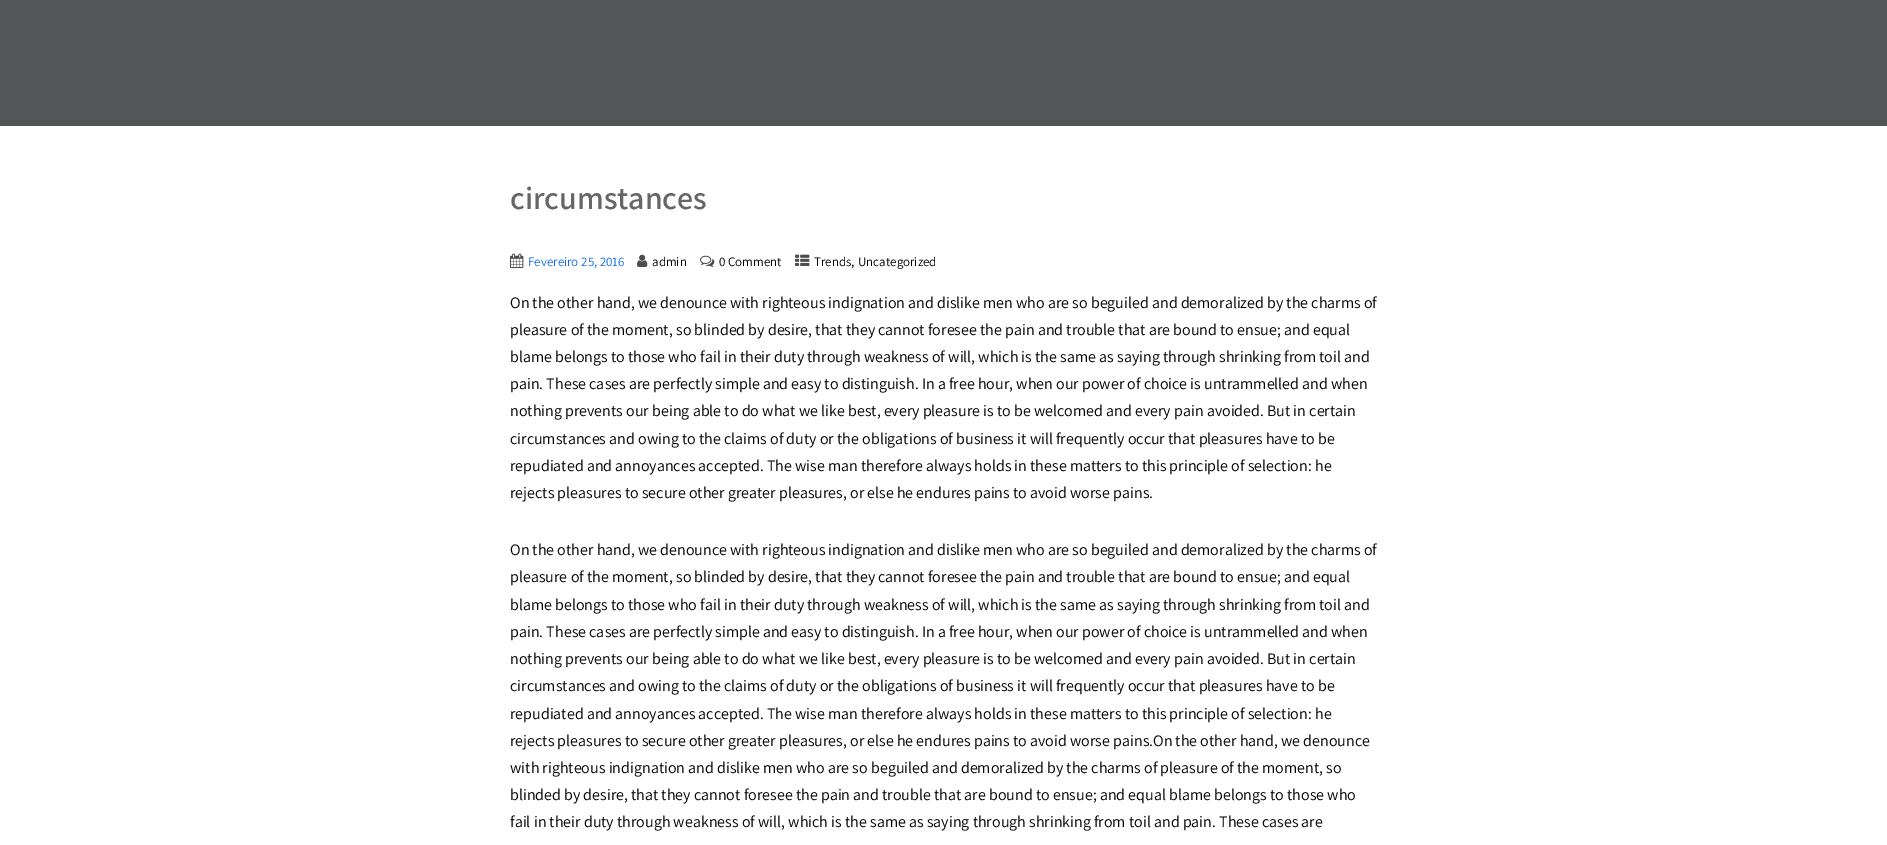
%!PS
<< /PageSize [1887 845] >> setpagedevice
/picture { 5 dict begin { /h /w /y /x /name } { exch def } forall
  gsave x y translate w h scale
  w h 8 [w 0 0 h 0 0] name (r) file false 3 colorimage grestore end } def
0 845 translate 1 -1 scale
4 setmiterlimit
1 setgray
0 0 1887 845 rectfill
0.329 0.333 0.337 setrgbcolor
0 0 1887 126 rectfill
/Assistant-SemiBold [32 0 0 -32 0 0] selectfont
0.4 setgray
510 209 moveto (circumstances) show
(img1.rgb) 510 253 14 16 picture
/Assistant-Regular [13 0 0 -13 0 0] selectfont
0.067 0.42 0.91 setrgbcolor
528 266 moveto (Fevereiro 25, 2016) show
(img2.rgb) 637 254 11 13 picture
0 setgray
652 266 moveto (admin) show
(img3.rgb) 700 255 15 12 picture
719 266 moveto (0 Comment) show
(img4.rgb) 795 254 15 12 picture
814 266 moveto (Trends) show
/Assistant-Regular [14 0 0 -14 0 0] selectfont
851 266 moveto (,) show
/Assistant-Regular [13 0 0 -13 0 0] selectfont
858 266 moveto (Uncategorized) show
/Assistant-Regular [16 0 0 -16 0 0] selectfont
510 308 moveto (On the other hand, we denounce with righteous indignation and dislike men who are so beguiled and demoralized by the charms of) show
510 335 moveto (pleasure of the moment, so blinded by desire, that they cannot foresee the pain and trouble that are bound to ensue; and equal) show
510 362 moveto (blame belongs to those who fail in their duty through weakness of will, which is the same as saying through shrinking from toil and) show
510 389 moveto (pain. These cases are perfectly simple and easy to distinguish. In a free hour, when our power of choice is untrammelled and when) show
510 416 moveto (nothing prevents our being able to do what we like best, every pleasure is to be welcomed and every pain avoided. But in certain) show
510 444 moveto (circumstances and owing to the claims of duty or the obligations of business it will frequently occur that pleasures have to be) show
510 471 moveto (repudiated and annoyances accepted. The wise man therefore always holds in these matters to this principle of selection: he) show
510 498 moveto (rejects pleasures to secure other greater pleasures, or else he endures pains to avoid worse pains.) show
510 555 moveto (On the other hand, we denounce with righteous indignation and dislike men who are so beguiled and demoralized by the charms of) show
510 582 moveto (pleasure of the moment, so blinded by desire, that they cannot foresee the pain and trouble that are bound to ensue; and equal) show
510 610 moveto (blame belongs to those who fail in their duty through weakness of will, which is the same as saying through shrinking from toil and) show
510 637 moveto (pain. These cases are perfectly simple and easy to distinguish. In a free hour, when our power of choice is untrammelled and when) show
510 664 moveto (nothing prevents our being able to do what we like best, every pleasure is to be welcomed and every pain avoided. But in certain) show
510 691 moveto (circumstances and owing to the claims of duty or the obligations of business it will frequently occur that pleasures have to be) show
510 719 moveto (repudiated and annoyances accepted. The wise man therefore always holds in these matters to this principle of selection: he) show
510 746 moveto (rejects pleasures to secure other greater pleasures, or else he endures pains to avoid worse pains.On the other hand, we denounce) show
510 773 moveto (with righteous indignation and dislike men who are so beguiled and demoralized by the charms of pleasure of the moment, so) show
510 800 moveto (blinded by desire, that they cannot foresee the pain and trouble that are bound to ensue; and equal blame belongs to those who) show
510 827 moveto (fail in their duty through weakness of will, which is the same as saying through shrinking from toil and pain. These cases are) show
showpage
